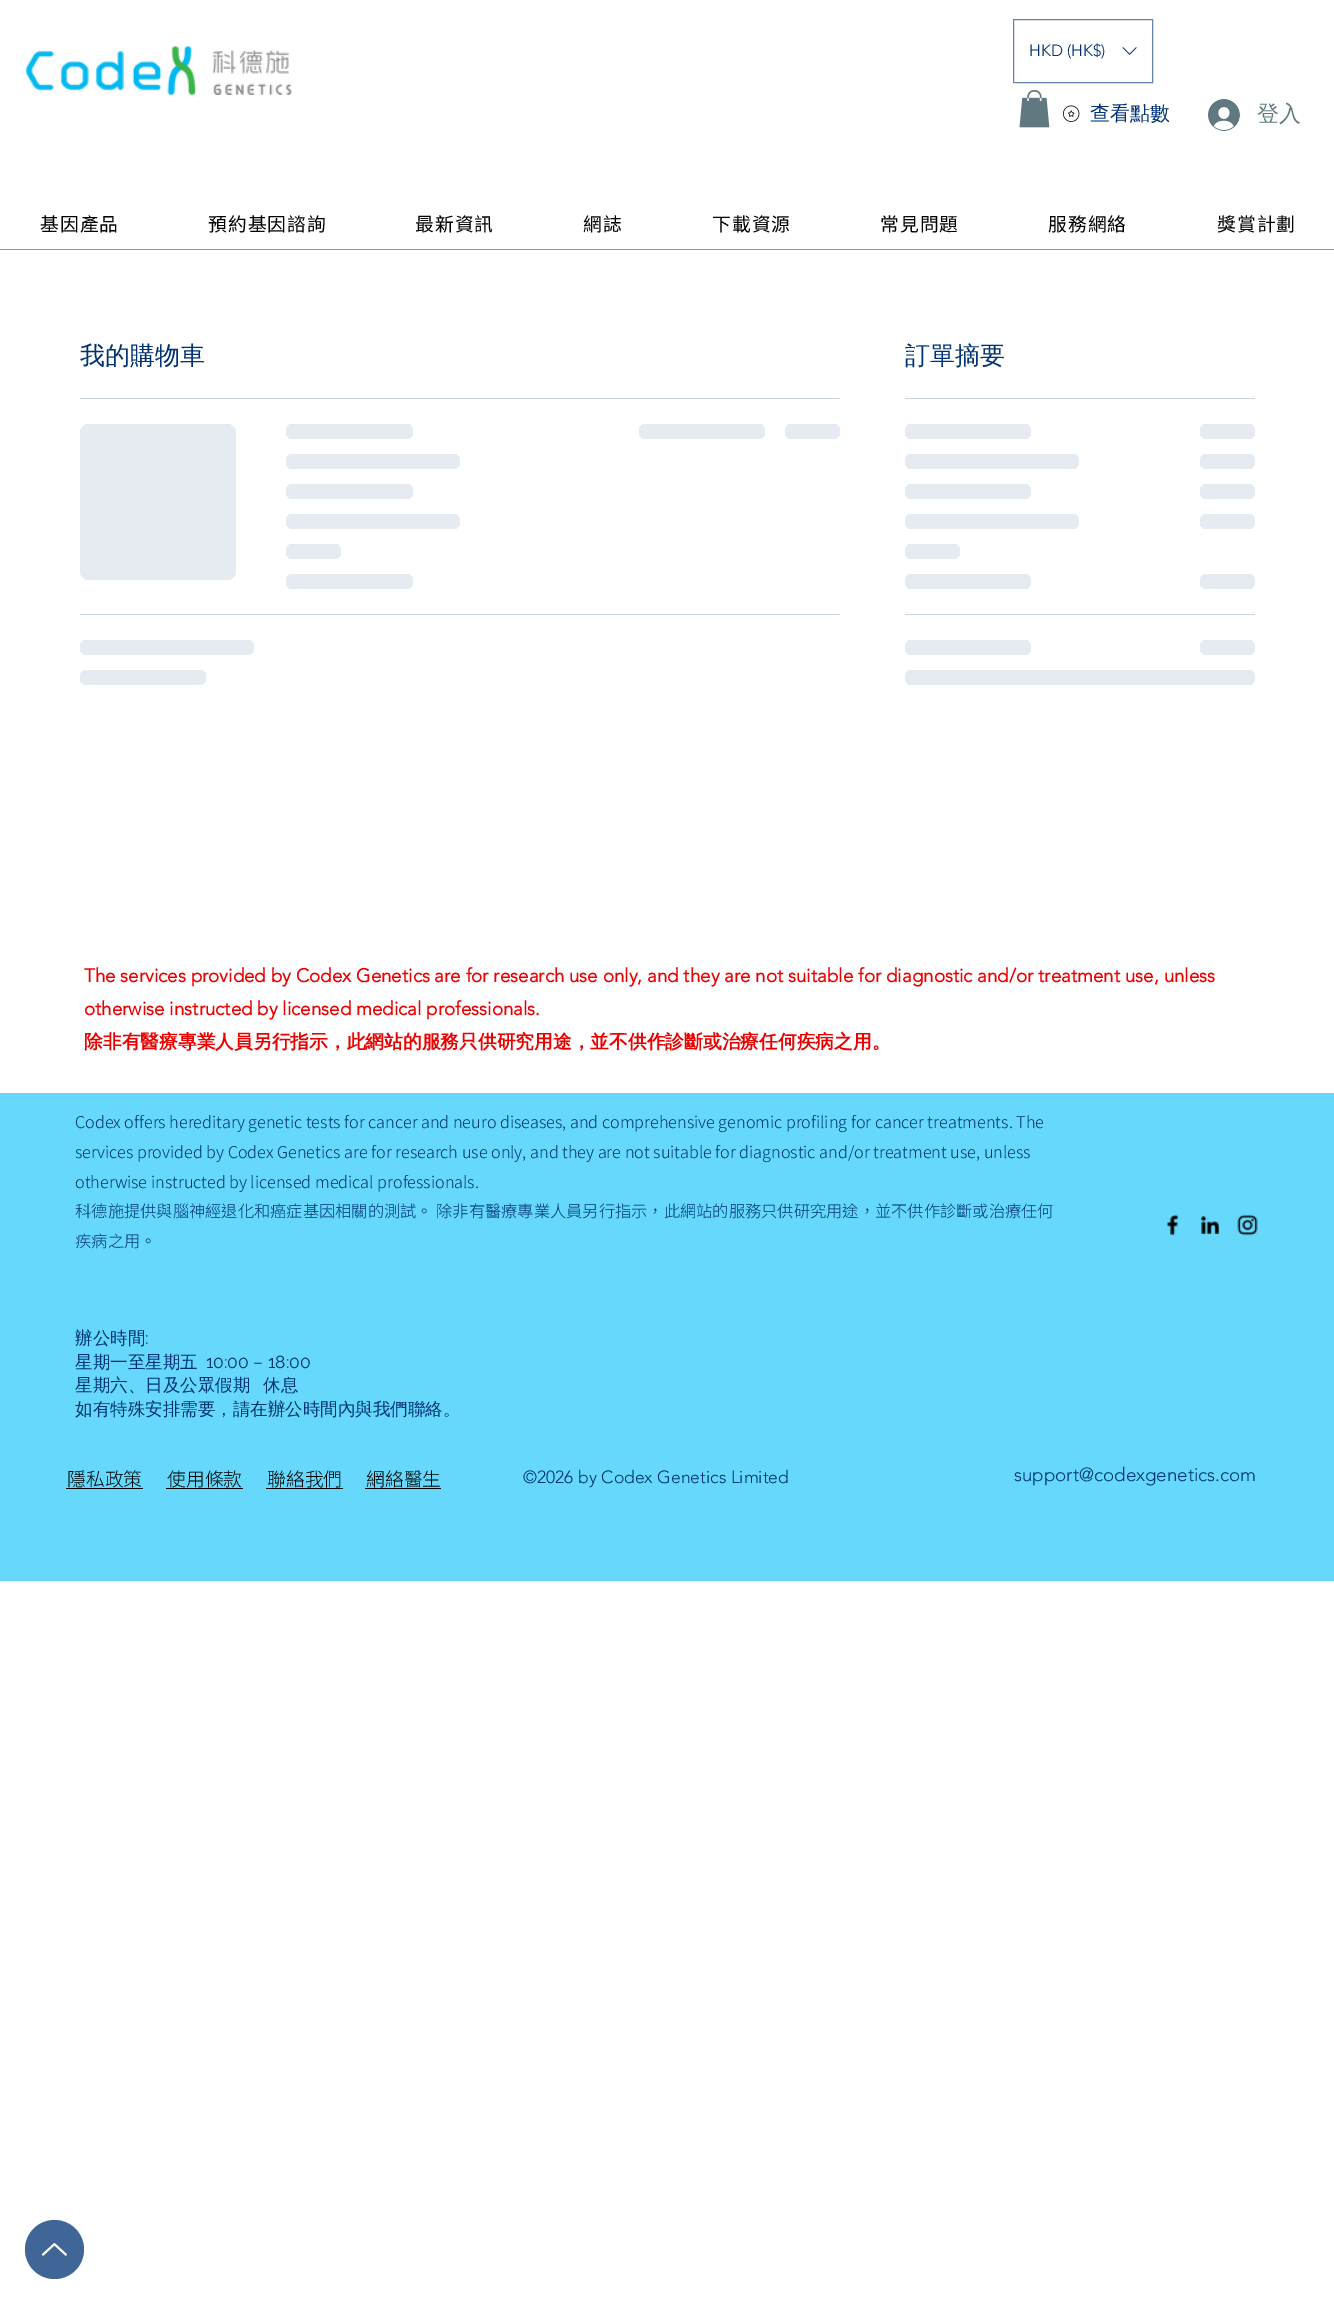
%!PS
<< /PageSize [1334 2321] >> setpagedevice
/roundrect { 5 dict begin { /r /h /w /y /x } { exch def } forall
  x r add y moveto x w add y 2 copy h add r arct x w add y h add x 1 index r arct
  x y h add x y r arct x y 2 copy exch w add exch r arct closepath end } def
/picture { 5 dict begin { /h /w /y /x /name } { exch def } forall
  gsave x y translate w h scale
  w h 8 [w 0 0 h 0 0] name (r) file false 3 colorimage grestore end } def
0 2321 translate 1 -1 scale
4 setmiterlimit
1 setgray
0 0 1334 2321 rectfill
(img1.rgb) 26 46 266 49 picture
0.4 0.514 0.675 setrgbcolor
1013.5 19.5 139 63 rectstroke
/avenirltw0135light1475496-Light [16.25 0 0 -16.25 0 0] selectfont
0 0.192 0.455 setrgbcolor
1029 56 moveto (HKD \(HK$\)) show
(img2.rgb) 1122 47 15 8 picture
(img3.rgb) 1019 90 31 38 picture
(img4.rgb) 1063 105 17 17 picture
/WenQuanYiZenHei-Medium [20 0 0 -20 0 0] selectfont
1090 120 moveto (查看點數) show
(img5.rgb) 1208 99 32 32 picture
/WenQuanYiZenHei-Medium [22 0 0 -22 0 0] selectfont
0.376 0.475 0.502 setrgbcolor
1257 121 moveto (登入) show
/NotoSansHK-Regular [18.75 0 0 -18.75 0 0] selectfont
0 setgray
40 231 moveto 1 0 (基因產品) ashow
208 231 moveto 1 0 (預約基因諮詢) ashow
415 231 moveto 1 0 (最新資訊) ashow
583 231 moveto 1 0 (網誌) ashow
712 231 moveto 1 0 (下載資源) ashow
880 231 moveto 1 0 (常見問題) ashow
1048 231 moveto 1 0 (服務網絡) ashow
1217 231 moveto 1 0 (獎賞計劃) ashow
0.502 0.596 0.729 setrgbcolor
0 249 1334 1 rectfill
0.8 0.839 0.89 setrgbcolor
80 398 760 1 rectfill
/WenQuanYiZenHei-Medium [25 0 0 -25 0 0] selectfont
0 0.192 0.455 setrgbcolor
80 364 moveto (我的購物車) show
gsave 80 424 156 156 10 roundrect clip newpath
<< /ShadingType 2 /ColorSpace /DeviceRGB /Coords [80 502 705 502] /Extend [true true] /Function << /FunctionType 3 /Domain [0 1] /Functions [<< /FunctionType 2 /Domain [0 1] /C0 [0.902 0.918 0.945] /C1 [0.902 0.918 0.945] /N 1 >> << /FunctionType 2 /Domain [0 1] /C0 [0.902 0.918 0.945] /C1 [0.8 0.839 0.89] /N 1 >> << /FunctionType 2 /Domain [0 1] /C0 [0.8 0.839 0.89] /C1 [0.902 0.918 0.945] /N 1 >> << /FunctionType 2 /Domain [0 1] /C0 [0.902 0.918 0.945] /C1 [0.902 0.918 0.945] /N 1 >>] /Bounds [0.25 0.37 0.63] /Encode [0 1 0 1 0 1 0 1] >> >> shfill grestore
gsave 286 424 127 15 7.5 roundrect clip newpath
<< /ShadingType 2 /ColorSpace /DeviceRGB /Coords [286 431 791 431] /Extend [true true] /Function << /FunctionType 3 /Domain [0 1] /Functions [<< /FunctionType 2 /Domain [0 1] /C0 [0.902 0.918 0.945] /C1 [0.902 0.918 0.945] /N 1 >> << /FunctionType 2 /Domain [0 1] /C0 [0.902 0.918 0.945] /C1 [0.8 0.839 0.89] /N 1 >> << /FunctionType 2 /Domain [0 1] /C0 [0.8 0.839 0.89] /C1 [0.902 0.918 0.945] /N 1 >> << /FunctionType 2 /Domain [0 1] /C0 [0.902 0.918 0.945] /C1 [0.902 0.918 0.945] /N 1 >>] /Bounds [0.25 0.37 0.63] /Encode [0 1 0 1 0 1 0 1] >> >> shfill grestore
gsave 286 454 174 15 7.5 roundrect clip newpath
<< /ShadingType 2 /ColorSpace /DeviceRGB /Coords [286 461 981 461] /Extend [true true] /Function << /FunctionType 3 /Domain [0 1] /Functions [<< /FunctionType 2 /Domain [0 1] /C0 [0.902 0.918 0.945] /C1 [0.902 0.918 0.945] /N 1 >> << /FunctionType 2 /Domain [0 1] /C0 [0.902 0.918 0.945] /C1 [0.8 0.839 0.89] /N 1 >> << /FunctionType 2 /Domain [0 1] /C0 [0.8 0.839 0.89] /C1 [0.902 0.918 0.945] /N 1 >> << /FunctionType 2 /Domain [0 1] /C0 [0.902 0.918 0.945] /C1 [0.902 0.918 0.945] /N 1 >>] /Bounds [0.25 0.37 0.63] /Encode [0 1 0 1 0 1 0 1] >> >> shfill grestore
gsave 286 484 127 15 7.5 roundrect clip newpath
<< /ShadingType 2 /ColorSpace /DeviceRGB /Coords [286 491 791 491] /Extend [true true] /Function << /FunctionType 3 /Domain [0 1] /Functions [<< /FunctionType 2 /Domain [0 1] /C0 [0.902 0.918 0.945] /C1 [0.902 0.918 0.945] /N 1 >> << /FunctionType 2 /Domain [0 1] /C0 [0.902 0.918 0.945] /C1 [0.8 0.839 0.89] /N 1 >> << /FunctionType 2 /Domain [0 1] /C0 [0.8 0.839 0.89] /C1 [0.902 0.918 0.945] /N 1 >> << /FunctionType 2 /Domain [0 1] /C0 [0.902 0.918 0.945] /C1 [0.902 0.918 0.945] /N 1 >>] /Bounds [0.25 0.37 0.63] /Encode [0 1 0 1 0 1 0 1] >> >> shfill grestore
gsave 286 514 174 15 7.5 roundrect clip newpath
<< /ShadingType 2 /ColorSpace /DeviceRGB /Coords [286 521 981 521] /Extend [true true] /Function << /FunctionType 3 /Domain [0 1] /Functions [<< /FunctionType 2 /Domain [0 1] /C0 [0.902 0.918 0.945] /C1 [0.902 0.918 0.945] /N 1 >> << /FunctionType 2 /Domain [0 1] /C0 [0.902 0.918 0.945] /C1 [0.8 0.839 0.89] /N 1 >> << /FunctionType 2 /Domain [0 1] /C0 [0.8 0.839 0.89] /C1 [0.902 0.918 0.945] /N 1 >> << /FunctionType 2 /Domain [0 1] /C0 [0.902 0.918 0.945] /C1 [0.902 0.918 0.945] /N 1 >>] /Bounds [0.25 0.37 0.63] /Encode [0 1 0 1 0 1 0 1] >> >> shfill grestore
gsave 286 544 55 15 7.5 roundrect clip newpath
<< /ShadingType 2 /ColorSpace /DeviceRGB /Coords [286 551 506 551] /Extend [true true] /Function << /FunctionType 3 /Domain [0 1] /Functions [<< /FunctionType 2 /Domain [0 1] /C0 [0.902 0.918 0.945] /C1 [0.902 0.918 0.945] /N 1 >> << /FunctionType 2 /Domain [0 1] /C0 [0.902 0.918 0.945] /C1 [0.8 0.839 0.89] /N 1 >> << /FunctionType 2 /Domain [0 1] /C0 [0.8 0.839 0.89] /C1 [0.902 0.918 0.945] /N 1 >> << /FunctionType 2 /Domain [0 1] /C0 [0.902 0.918 0.945] /C1 [0.902 0.918 0.945] /N 1 >>] /Bounds [0.25 0.37 0.63] /Encode [0 1 0 1 0 1 0 1] >> >> shfill grestore
gsave 286 574 127 15 7.5 roundrect clip newpath
<< /ShadingType 2 /ColorSpace /DeviceRGB /Coords [286 581 791 581] /Extend [true true] /Function << /FunctionType 3 /Domain [0 1] /Functions [<< /FunctionType 2 /Domain [0 1] /C0 [0.902 0.918 0.945] /C1 [0.902 0.918 0.945] /N 1 >> << /FunctionType 2 /Domain [0 1] /C0 [0.902 0.918 0.945] /C1 [0.8 0.839 0.89] /N 1 >> << /FunctionType 2 /Domain [0 1] /C0 [0.8 0.839 0.89] /C1 [0.902 0.918 0.945] /N 1 >> << /FunctionType 2 /Domain [0 1] /C0 [0.902 0.918 0.945] /C1 [0.902 0.918 0.945] /N 1 >>] /Bounds [0.25 0.37 0.63] /Encode [0 1 0 1 0 1 0 1] >> >> shfill grestore
gsave 639 424 126 15 7.5 roundrect clip newpath
<< /ShadingType 2 /ColorSpace /DeviceRGB /Coords [639 431 1144 431] /Extend [true true] /Function << /FunctionType 3 /Domain [0 1] /Functions [<< /FunctionType 2 /Domain [0 1] /C0 [0.902 0.918 0.945] /C1 [0.902 0.918 0.945] /N 1 >> << /FunctionType 2 /Domain [0 1] /C0 [0.902 0.918 0.945] /C1 [0.8 0.839 0.89] /N 1 >> << /FunctionType 2 /Domain [0 1] /C0 [0.8 0.839 0.89] /C1 [0.902 0.918 0.945] /N 1 >> << /FunctionType 2 /Domain [0 1] /C0 [0.902 0.918 0.945] /C1 [0.902 0.918 0.945] /N 1 >>] /Bounds [0.25 0.37 0.63] /Encode [0 1 0 1 0 1 0 1] >> >> shfill grestore
gsave 785 424 55 15 7.5 roundrect clip newpath
<< /ShadingType 2 /ColorSpace /DeviceRGB /Coords [785 431 1005 431] /Extend [true true] /Function << /FunctionType 3 /Domain [0 1] /Functions [<< /FunctionType 2 /Domain [0 1] /C0 [0.902 0.918 0.945] /C1 [0.902 0.918 0.945] /N 1 >> << /FunctionType 2 /Domain [0 1] /C0 [0.902 0.918 0.945] /C1 [0.8 0.839 0.89] /N 1 >> << /FunctionType 2 /Domain [0 1] /C0 [0.8 0.839 0.89] /C1 [0.902 0.918 0.945] /N 1 >> << /FunctionType 2 /Domain [0 1] /C0 [0.902 0.918 0.945] /C1 [0.902 0.918 0.945] /N 1 >>] /Bounds [0.25 0.37 0.63] /Encode [0 1 0 1 0 1 0 1] >> >> shfill grestore
0.8 0.839 0.89 setrgbcolor
80 614 760 1 rectfill
gsave 80 640 174 15 7.5 roundrect clip newpath
<< /ShadingType 2 /ColorSpace /DeviceRGB /Coords [80 648 775 648] /Extend [true true] /Function << /FunctionType 3 /Domain [0 1] /Functions [<< /FunctionType 2 /Domain [0 1] /C0 [0.902 0.918 0.945] /C1 [0.902 0.918 0.945] /N 1 >> << /FunctionType 2 /Domain [0 1] /C0 [0.902 0.918 0.945] /C1 [0.8 0.839 0.89] /N 1 >> << /FunctionType 2 /Domain [0 1] /C0 [0.8 0.839 0.89] /C1 [0.902 0.918 0.945] /N 1 >> << /FunctionType 2 /Domain [0 1] /C0 [0.902 0.918 0.945] /C1 [0.902 0.918 0.945] /N 1 >>] /Bounds [0.25 0.37 0.63] /Encode [0 1 0 1 0 1 0 1] >> >> shfill grestore
gsave 80 670 126 15 7.5 roundrect clip newpath
<< /ShadingType 2 /ColorSpace /DeviceRGB /Coords [80 678 585 678] /Extend [true true] /Function << /FunctionType 3 /Domain [0 1] /Functions [<< /FunctionType 2 /Domain [0 1] /C0 [0.902 0.918 0.945] /C1 [0.902 0.918 0.945] /N 1 >> << /FunctionType 2 /Domain [0 1] /C0 [0.902 0.918 0.945] /C1 [0.8 0.839 0.89] /N 1 >> << /FunctionType 2 /Domain [0 1] /C0 [0.8 0.839 0.89] /C1 [0.902 0.918 0.945] /N 1 >> << /FunctionType 2 /Domain [0 1] /C0 [0.902 0.918 0.945] /C1 [0.902 0.918 0.945] /N 1 >>] /Bounds [0.25 0.37 0.63] /Encode [0 1 0 1 0 1 0 1] >> >> shfill grestore
905 398 350 1 rectfill
0 0.192 0.455 setrgbcolor
905 364 moveto (訂單摘要) show
gsave 905 424 126 15 7.5 roundrect clip newpath
<< /ShadingType 2 /ColorSpace /DeviceRGB /Coords [905 431 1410 431] /Extend [true true] /Function << /FunctionType 3 /Domain [0 1] /Functions [<< /FunctionType 2 /Domain [0 1] /C0 [0.902 0.918 0.945] /C1 [0.902 0.918 0.945] /N 1 >> << /FunctionType 2 /Domain [0 1] /C0 [0.902 0.918 0.945] /C1 [0.8 0.839 0.89] /N 1 >> << /FunctionType 2 /Domain [0 1] /C0 [0.8 0.839 0.89] /C1 [0.902 0.918 0.945] /N 1 >> << /FunctionType 2 /Domain [0 1] /C0 [0.902 0.918 0.945] /C1 [0.902 0.918 0.945] /N 1 >>] /Bounds [0.25 0.37 0.63] /Encode [0 1 0 1 0 1 0 1] >> >> shfill grestore
gsave 1200 424 55 15 7.5 roundrect clip newpath
<< /ShadingType 2 /ColorSpace /DeviceRGB /Coords [1200 431 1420 431] /Extend [true true] /Function << /FunctionType 3 /Domain [0 1] /Functions [<< /FunctionType 2 /Domain [0 1] /C0 [0.902 0.918 0.945] /C1 [0.902 0.918 0.945] /N 1 >> << /FunctionType 2 /Domain [0 1] /C0 [0.902 0.918 0.945] /C1 [0.8 0.839 0.89] /N 1 >> << /FunctionType 2 /Domain [0 1] /C0 [0.8 0.839 0.89] /C1 [0.902 0.918 0.945] /N 1 >> << /FunctionType 2 /Domain [0 1] /C0 [0.902 0.918 0.945] /C1 [0.902 0.918 0.945] /N 1 >>] /Bounds [0.25 0.37 0.63] /Encode [0 1 0 1 0 1 0 1] >> >> shfill grestore
gsave 905 454 174 15 7.5 roundrect clip newpath
<< /ShadingType 2 /ColorSpace /DeviceRGB /Coords [905 461 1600 461] /Extend [true true] /Function << /FunctionType 3 /Domain [0 1] /Functions [<< /FunctionType 2 /Domain [0 1] /C0 [0.902 0.918 0.945] /C1 [0.902 0.918 0.945] /N 1 >> << /FunctionType 2 /Domain [0 1] /C0 [0.902 0.918 0.945] /C1 [0.8 0.839 0.89] /N 1 >> << /FunctionType 2 /Domain [0 1] /C0 [0.8 0.839 0.89] /C1 [0.902 0.918 0.945] /N 1 >> << /FunctionType 2 /Domain [0 1] /C0 [0.902 0.918 0.945] /C1 [0.902 0.918 0.945] /N 1 >>] /Bounds [0.25 0.37 0.63] /Encode [0 1 0 1 0 1 0 1] >> >> shfill grestore
gsave 1200 454 55 15 7.5 roundrect clip newpath
<< /ShadingType 2 /ColorSpace /DeviceRGB /Coords [1200 461 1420 461] /Extend [true true] /Function << /FunctionType 3 /Domain [0 1] /Functions [<< /FunctionType 2 /Domain [0 1] /C0 [0.902 0.918 0.945] /C1 [0.902 0.918 0.945] /N 1 >> << /FunctionType 2 /Domain [0 1] /C0 [0.902 0.918 0.945] /C1 [0.8 0.839 0.89] /N 1 >> << /FunctionType 2 /Domain [0 1] /C0 [0.8 0.839 0.89] /C1 [0.902 0.918 0.945] /N 1 >> << /FunctionType 2 /Domain [0 1] /C0 [0.902 0.918 0.945] /C1 [0.902 0.918 0.945] /N 1 >>] /Bounds [0.25 0.37 0.63] /Encode [0 1 0 1 0 1 0 1] >> >> shfill grestore
gsave 905 484 126 15 7.5 roundrect clip newpath
<< /ShadingType 2 /ColorSpace /DeviceRGB /Coords [905 491 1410 491] /Extend [true true] /Function << /FunctionType 3 /Domain [0 1] /Functions [<< /FunctionType 2 /Domain [0 1] /C0 [0.902 0.918 0.945] /C1 [0.902 0.918 0.945] /N 1 >> << /FunctionType 2 /Domain [0 1] /C0 [0.902 0.918 0.945] /C1 [0.8 0.839 0.89] /N 1 >> << /FunctionType 2 /Domain [0 1] /C0 [0.8 0.839 0.89] /C1 [0.902 0.918 0.945] /N 1 >> << /FunctionType 2 /Domain [0 1] /C0 [0.902 0.918 0.945] /C1 [0.902 0.918 0.945] /N 1 >>] /Bounds [0.25 0.37 0.63] /Encode [0 1 0 1 0 1 0 1] >> >> shfill grestore
gsave 1200 484 55 15 7.5 roundrect clip newpath
<< /ShadingType 2 /ColorSpace /DeviceRGB /Coords [1200 491 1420 491] /Extend [true true] /Function << /FunctionType 3 /Domain [0 1] /Functions [<< /FunctionType 2 /Domain [0 1] /C0 [0.902 0.918 0.945] /C1 [0.902 0.918 0.945] /N 1 >> << /FunctionType 2 /Domain [0 1] /C0 [0.902 0.918 0.945] /C1 [0.8 0.839 0.89] /N 1 >> << /FunctionType 2 /Domain [0 1] /C0 [0.8 0.839 0.89] /C1 [0.902 0.918 0.945] /N 1 >> << /FunctionType 2 /Domain [0 1] /C0 [0.902 0.918 0.945] /C1 [0.902 0.918 0.945] /N 1 >>] /Bounds [0.25 0.37 0.63] /Encode [0 1 0 1 0 1 0 1] >> >> shfill grestore
gsave 905 514 174 15 7.5 roundrect clip newpath
<< /ShadingType 2 /ColorSpace /DeviceRGB /Coords [905 521 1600 521] /Extend [true true] /Function << /FunctionType 3 /Domain [0 1] /Functions [<< /FunctionType 2 /Domain [0 1] /C0 [0.902 0.918 0.945] /C1 [0.902 0.918 0.945] /N 1 >> << /FunctionType 2 /Domain [0 1] /C0 [0.902 0.918 0.945] /C1 [0.8 0.839 0.89] /N 1 >> << /FunctionType 2 /Domain [0 1] /C0 [0.8 0.839 0.89] /C1 [0.902 0.918 0.945] /N 1 >> << /FunctionType 2 /Domain [0 1] /C0 [0.902 0.918 0.945] /C1 [0.902 0.918 0.945] /N 1 >>] /Bounds [0.25 0.37 0.63] /Encode [0 1 0 1 0 1 0 1] >> >> shfill grestore
gsave 1200 514 55 15 7.5 roundrect clip newpath
<< /ShadingType 2 /ColorSpace /DeviceRGB /Coords [1200 521 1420 521] /Extend [true true] /Function << /FunctionType 3 /Domain [0 1] /Functions [<< /FunctionType 2 /Domain [0 1] /C0 [0.902 0.918 0.945] /C1 [0.902 0.918 0.945] /N 1 >> << /FunctionType 2 /Domain [0 1] /C0 [0.902 0.918 0.945] /C1 [0.8 0.839 0.89] /N 1 >> << /FunctionType 2 /Domain [0 1] /C0 [0.8 0.839 0.89] /C1 [0.902 0.918 0.945] /N 1 >> << /FunctionType 2 /Domain [0 1] /C0 [0.902 0.918 0.945] /C1 [0.902 0.918 0.945] /N 1 >>] /Bounds [0.25 0.37 0.63] /Encode [0 1 0 1 0 1 0 1] >> >> shfill grestore
gsave 905 544 55 15 7.5 roundrect clip newpath
<< /ShadingType 2 /ColorSpace /DeviceRGB /Coords [905 551 1125 551] /Extend [true true] /Function << /FunctionType 3 /Domain [0 1] /Functions [<< /FunctionType 2 /Domain [0 1] /C0 [0.902 0.918 0.945] /C1 [0.902 0.918 0.945] /N 1 >> << /FunctionType 2 /Domain [0 1] /C0 [0.902 0.918 0.945] /C1 [0.8 0.839 0.89] /N 1 >> << /FunctionType 2 /Domain [0 1] /C0 [0.8 0.839 0.89] /C1 [0.902 0.918 0.945] /N 1 >> << /FunctionType 2 /Domain [0 1] /C0 [0.902 0.918 0.945] /C1 [0.902 0.918 0.945] /N 1 >>] /Bounds [0.25 0.37 0.63] /Encode [0 1 0 1 0 1 0 1] >> >> shfill grestore
gsave 905 574 126 15 7.5 roundrect clip newpath
<< /ShadingType 2 /ColorSpace /DeviceRGB /Coords [905 581 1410 581] /Extend [true true] /Function << /FunctionType 3 /Domain [0 1] /Functions [<< /FunctionType 2 /Domain [0 1] /C0 [0.902 0.918 0.945] /C1 [0.902 0.918 0.945] /N 1 >> << /FunctionType 2 /Domain [0 1] /C0 [0.902 0.918 0.945] /C1 [0.8 0.839 0.89] /N 1 >> << /FunctionType 2 /Domain [0 1] /C0 [0.8 0.839 0.89] /C1 [0.902 0.918 0.945] /N 1 >> << /FunctionType 2 /Domain [0 1] /C0 [0.902 0.918 0.945] /C1 [0.902 0.918 0.945] /N 1 >>] /Bounds [0.25 0.37 0.63] /Encode [0 1 0 1 0 1 0 1] >> >> shfill grestore
gsave 1200 574 55 15 7.5 roundrect clip newpath
<< /ShadingType 2 /ColorSpace /DeviceRGB /Coords [1200 581 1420 581] /Extend [true true] /Function << /FunctionType 3 /Domain [0 1] /Functions [<< /FunctionType 2 /Domain [0 1] /C0 [0.902 0.918 0.945] /C1 [0.902 0.918 0.945] /N 1 >> << /FunctionType 2 /Domain [0 1] /C0 [0.902 0.918 0.945] /C1 [0.8 0.839 0.89] /N 1 >> << /FunctionType 2 /Domain [0 1] /C0 [0.8 0.839 0.89] /C1 [0.902 0.918 0.945] /N 1 >> << /FunctionType 2 /Domain [0 1] /C0 [0.902 0.918 0.945] /C1 [0.902 0.918 0.945] /N 1 >>] /Bounds [0.25 0.37 0.63] /Encode [0 1 0 1 0 1 0 1] >> >> shfill grestore
0.8 0.839 0.89 setrgbcolor
905 614 350 1 rectfill
gsave 905 640 126 15 7.5 roundrect clip newpath
<< /ShadingType 2 /ColorSpace /DeviceRGB /Coords [905 648 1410 648] /Extend [true true] /Function << /FunctionType 3 /Domain [0 1] /Functions [<< /FunctionType 2 /Domain [0 1] /C0 [0.902 0.918 0.945] /C1 [0.902 0.918 0.945] /N 1 >> << /FunctionType 2 /Domain [0 1] /C0 [0.902 0.918 0.945] /C1 [0.8 0.839 0.89] /N 1 >> << /FunctionType 2 /Domain [0 1] /C0 [0.8 0.839 0.89] /C1 [0.902 0.918 0.945] /N 1 >> << /FunctionType 2 /Domain [0 1] /C0 [0.902 0.918 0.945] /C1 [0.902 0.918 0.945] /N 1 >>] /Bounds [0.25 0.37 0.63] /Encode [0 1 0 1 0 1 0 1] >> >> shfill grestore
gsave 1200 640 55 15 7.5 roundrect clip newpath
<< /ShadingType 2 /ColorSpace /DeviceRGB /Coords [1200 648 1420 648] /Extend [true true] /Function << /FunctionType 3 /Domain [0 1] /Functions [<< /FunctionType 2 /Domain [0 1] /C0 [0.902 0.918 0.945] /C1 [0.902 0.918 0.945] /N 1 >> << /FunctionType 2 /Domain [0 1] /C0 [0.902 0.918 0.945] /C1 [0.8 0.839 0.89] /N 1 >> << /FunctionType 2 /Domain [0 1] /C0 [0.8 0.839 0.89] /C1 [0.902 0.918 0.945] /N 1 >> << /FunctionType 2 /Domain [0 1] /C0 [0.902 0.918 0.945] /C1 [0.902 0.918 0.945] /N 1 >>] /Bounds [0.25 0.37 0.63] /Encode [0 1 0 1 0 1 0 1] >> >> shfill grestore
gsave 905 670 350 15 7.5 roundrect clip newpath
<< /ShadingType 2 /ColorSpace /DeviceRGB /Coords [905 678 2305 678] /Extend [true true] /Function << /FunctionType 3 /Domain [0 1] /Functions [<< /FunctionType 2 /Domain [0 1] /C0 [0.902 0.918 0.945] /C1 [0.902 0.918 0.945] /N 1 >> << /FunctionType 2 /Domain [0 1] /C0 [0.902 0.918 0.945] /C1 [0.8 0.839 0.89] /N 1 >> << /FunctionType 2 /Domain [0 1] /C0 [0.8 0.839 0.89] /C1 [0.902 0.918 0.945] /N 1 >> << /FunctionType 2 /Domain [0 1] /C0 [0.902 0.918 0.945] /C1 [0.902 0.918 0.945] /N 1 >>] /Bounds [0.25 0.37 0.63] /Encode [0 1 0 1 0 1 0 1] >> >> shfill grestore
/avenirltw0135light1475496-Bold [18.75 0 0 -18.75 0 0] selectfont
0.922 0 0 setrgbcolor
84 982 moveto (The services provided by Codex Genetics are for research use only, and they are not suitable for diagnostic and/or treatment use, unless) show
84 1015 moveto (otherwise instructed by licensed medical professionals.) show
/WenQuanYiZenHei-Bold [18.75 0 0 -18.75 0 0] selectfont
84 1048 moveto (除非有醫療專業人員另行指示，此網站的服務只供研究用途，並不供作診斷或治療任何疾病之用。) show
0.4 0.847 0.984 setrgbcolor
0 1093 1334 488 rectfill
/NotoSansHK-Light [16.25 0 0 -16.25 0 0] selectfont
0 0.192 0.455 setrgbcolor
75 1128 moveto (Codex offers hereditary genetic tests for cancer and neuro diseases, and comprehensive genomic profiling for cancer treatments. The) show
75 1158 moveto (services provided by Codex Genetics are for research use only, and they are not suitable for diagnostic and/or treatment use, unless) show
75 1188 moveto (otherwise instructed by licensed medical professionals.) show
75 1217 moveto (科德施提供與腦神經退化和癌症基因相關的測試。 除非有醫療專業人員另行指示，此網站的服務只供研究用途，並不供作診斷或治療任何) show
75 1247 moveto (疾病之用。) show
(img6.rgb) 1167 1214 12 22 picture
(img7.rgb) 1201 1216 19 19 picture
(img8.rgb) 1237 1214 21 22 picture
/WenQuanYiZenHei-Medium [17.5 0 0 -17.5 0 0] selectfont
75 1344 moveto (辦公時間) show
/Raleway-Regular [17.5 0 0 -17.5 0 0] selectfont
145 1344 moveto (:) show
/WenQuanYiZenHei-Medium [17.5 0 0 -17.5 0 0] selectfont
75 1368 moveto (星期一至星期五) show
/Raleway-Regular [17.5 0 0 -17.5 0 0] selectfont
206 1368 moveto (10:00 – 18:00) show
/WenQuanYiZenHei-Medium [17.5 0 0 -17.5 0 0] selectfont
75 1391 moveto (星期六、日及公眾假期) show
263 1391 moveto (休息) show
75 1415 moveto (如有特殊安排需要，請在辦公時間內與我們聯絡。) show
/NotoSansHK-Light [18.75 0 0 -18.75 0 0] selectfont
0 setgray
67 1486 moveto (隱私政策) show
66 1488 77 1 rectfill
167 1486 moveto (使用條款) show
166 1488 77 1 rectfill
267 1486 moveto (聯絡我們) show
266 1488 77 1 rectfill
366 1486 moveto (網絡醫生) show
365 1488 76 1 rectfill
/avenirltw0135light1475496-Light [17.5 0 0 -17.5 0 0] selectfont
0 0.192 0.455 setrgbcolor
523 1483 moveto (©2026 by Codex Genetics Limited) show
/avenirltw0135light1475496-Light [18.75 0 0 -18.75 0 0] selectfont
1014 1481 moveto (support@codexgenetics.com) show
0.251 0.396 0.592 setrgbcolor
newpath 54.5 2249.5 29.5 0 360 arc closepath fill
(img9.rgb) 41 2243 26 13 picture
showpage
